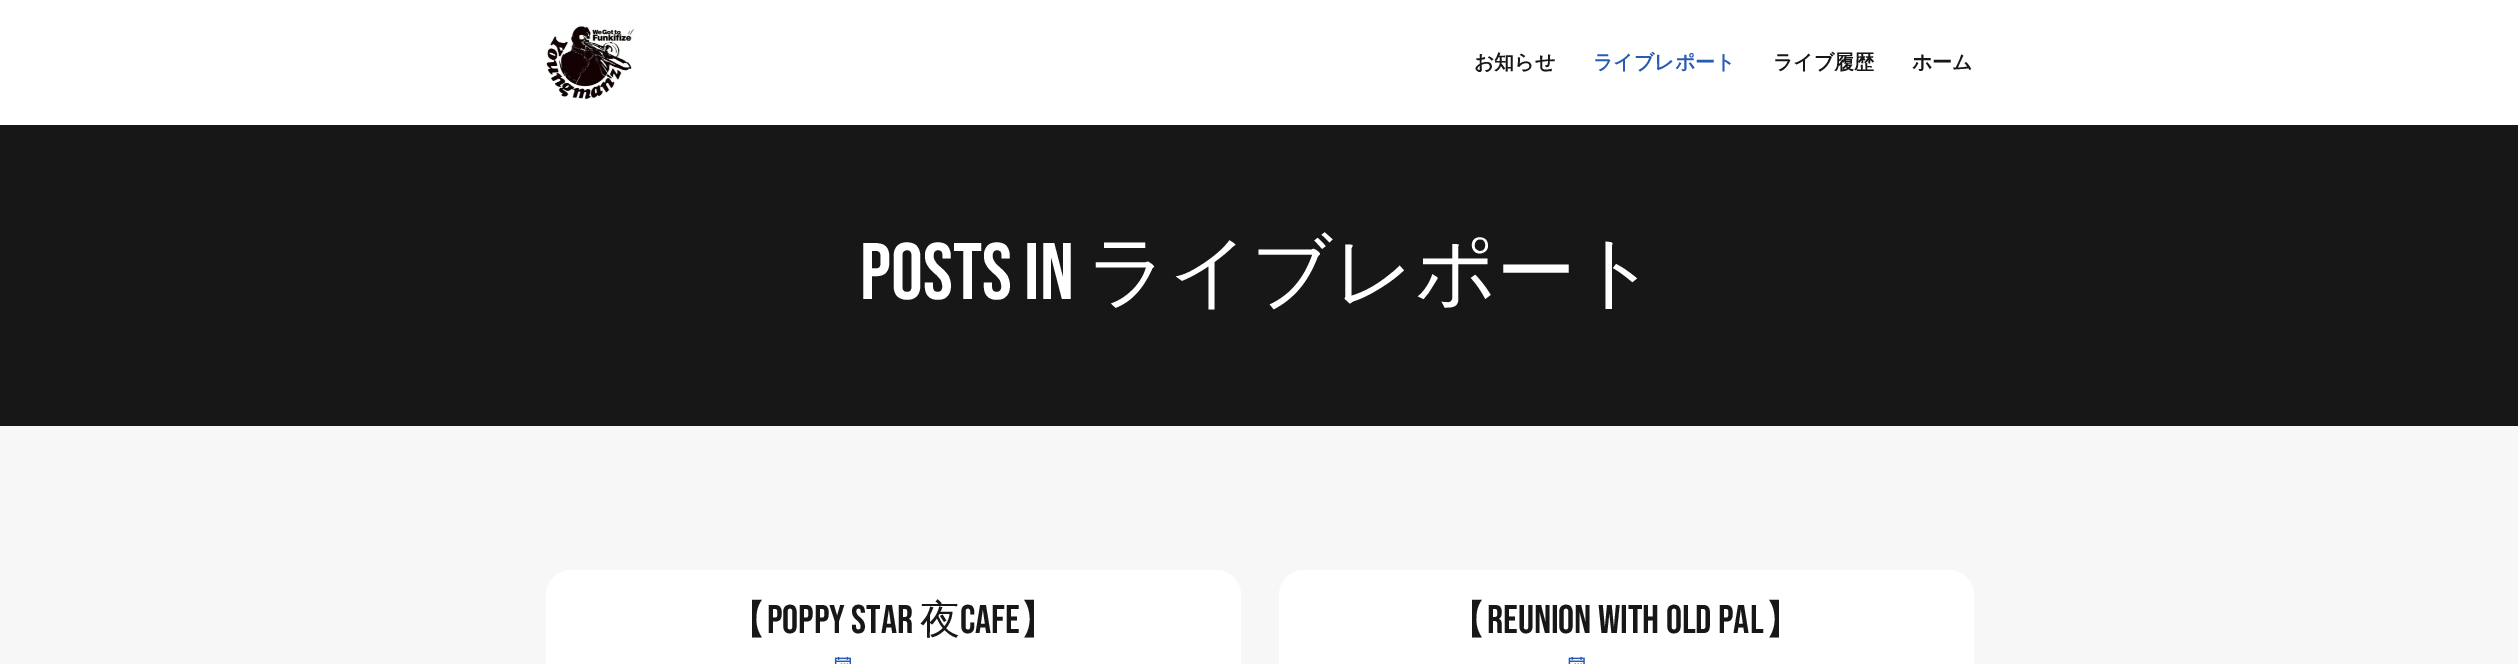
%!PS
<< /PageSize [2518 664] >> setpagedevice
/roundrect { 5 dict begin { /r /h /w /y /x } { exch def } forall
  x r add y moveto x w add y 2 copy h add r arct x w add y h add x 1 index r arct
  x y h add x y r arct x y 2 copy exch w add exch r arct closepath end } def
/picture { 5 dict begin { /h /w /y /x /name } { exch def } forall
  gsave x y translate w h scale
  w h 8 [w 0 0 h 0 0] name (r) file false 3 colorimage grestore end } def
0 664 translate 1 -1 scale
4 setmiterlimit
1 setgray
0 0 2518 664 rectfill
(img1.rgb) 546 25 88 75 picture
/WenQuanYiZenHei-Bold [20 0 0 -20 0 0] selectfont
0.09 0.09 0.094 setrgbcolor
1474 69 moveto (お知らせ) show
0.157 0.357 0.706 setrgbcolor
1593 69 moveto (ライブレポート) show
0.09 0.09 0.094 setrgbcolor
1773 69 moveto (ライブ履歴) show
1912 69 moveto (ホーム) show
0 125 2518 301 rectfill
/BebasNeue-Regular [80 0 0 -80 0 0] selectfont
1 setgray
860 299 moveto (Posts in) show
/WenQuanYiZenHei-Medium [80 0 0 -80 0 0] selectfont
1087 299 moveto (ライブレポート) show
0.969 setgray
0 426 2518 238 rectfill
1 setgray
546 570 695 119 25 roundrect fill
/WenQuanYiZenHei-Medium [40 0 0 -40 0 0] selectfont
0.09 0.09 0.094 setrgbcolor
727 633 moveto (【) show
/BebasNeue-Regular [40 0 0 -40 0 0] selectfont
767 633 moveto (Poppy Star) show
/WenQuanYiZenHei-Medium [40 0 0 -40 0 0] selectfont
920 633 moveto (夜) show
/BebasNeue-Regular [40 0 0 -40 0 0] selectfont
960 633 moveto (Cafe) show
/WenQuanYiZenHei-Medium [40 0 0 -40 0 0] selectfont
1019 633 moveto (】) show
(img2.rgb) 834 656 18 8 picture
1 setgray
1279 570 695 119 25 roundrect fill
0.09 0.09 0.094 setrgbcolor
1447 633 moveto (【) show
/BebasNeue-Regular [40 0 0 -40 0 0] selectfont
1487 633 moveto (Reunion with old pal) show
/WenQuanYiZenHei-Medium [40 0 0 -40 0 0] selectfont
1764 633 moveto (】) show
(img3.rgb) 1568 656 17 8 picture
showpage
